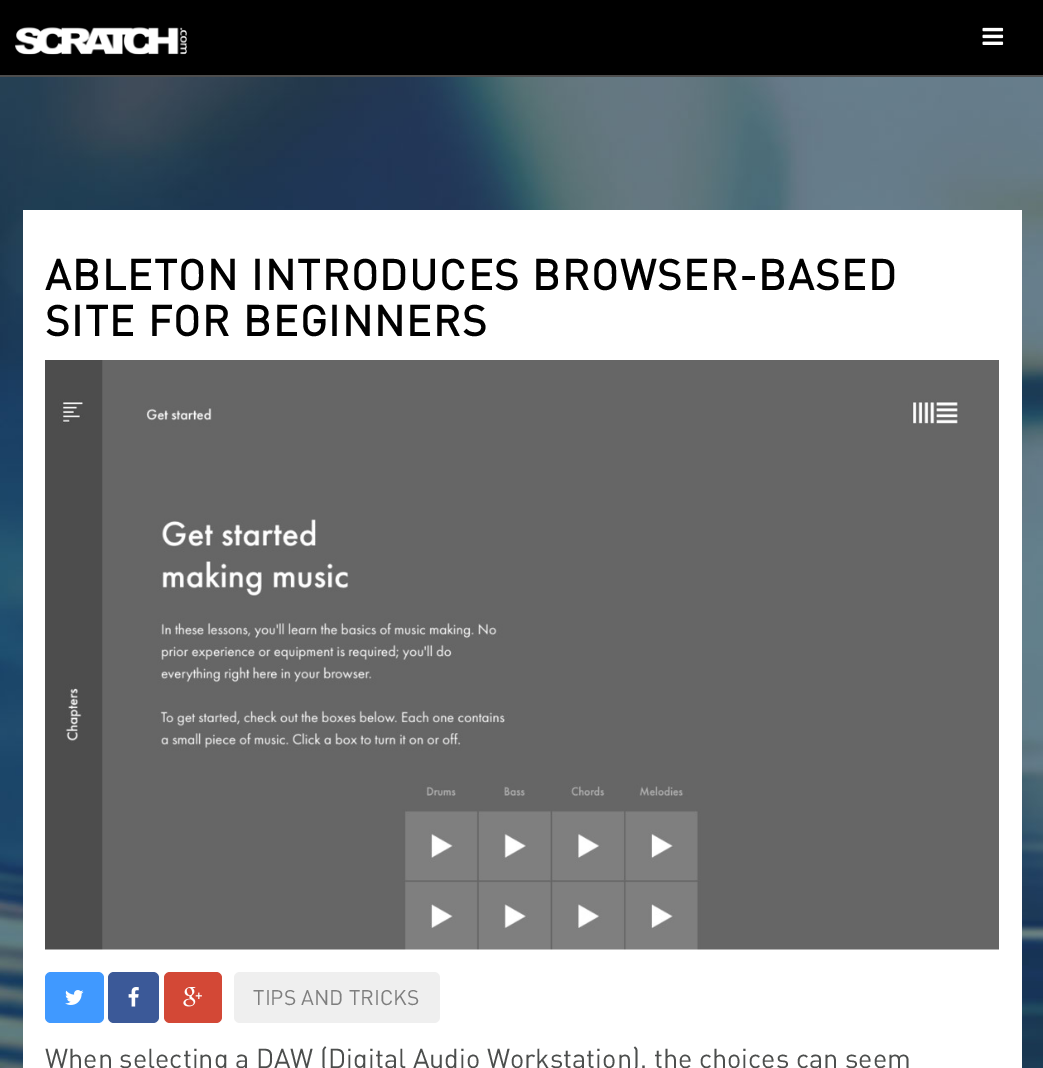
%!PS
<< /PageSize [1043 1068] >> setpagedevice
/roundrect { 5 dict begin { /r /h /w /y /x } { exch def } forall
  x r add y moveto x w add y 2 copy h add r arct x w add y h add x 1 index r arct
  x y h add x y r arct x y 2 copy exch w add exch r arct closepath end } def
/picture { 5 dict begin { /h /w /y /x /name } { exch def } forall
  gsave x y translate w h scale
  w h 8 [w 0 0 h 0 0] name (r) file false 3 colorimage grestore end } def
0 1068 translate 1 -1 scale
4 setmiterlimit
1 setgray
0 0 1043 1068 rectfill
0 setgray
0 0 1043 75 rectfill
0.302 setgray
0 75 1043 2 rectfill
(img1.rgb) 15 27 172 28 picture
(img2.rgb) 982 27 22 18 picture
(img3.rgb) 0 77 1043 991 picture
1 setgray
23 210 999 858 rectfill
/DIN-Bold [42 0 0 -42 0 0] selectfont
0 setgray
45 290 moveto 1.5 0 (ABLETON INTRODUCES BROWSER-BASED) ashow
45 336 moveto 1.5 0 (SITE FOR BEGINNERS) ashow
(img4.rgb) 45 360 954 590 picture
0.251 0.6 1 setrgbcolor
45 972 59 51 6 roundrect fill
(img5.rgb) 65 990 19 15 picture
0.231 0.349 0.596 setrgbcolor
108 972 51 51 6 roundrect fill
(img6.rgb) 128 987 11 20 picture
0.827 0.282 0.212 setrgbcolor
164 972 58 51 6 roundrect fill
(img7.rgb) 183 987 19 20 picture
0.937 setgray
234 972 206 51 6 roundrect fill
/DIN-Regular [21 0 0 -21 0 0] selectfont
0.494 setgray
253 1005 moveto (TIPS AND TRICKS) show
/DIN-Regular [27 0 0 -27 0 0] selectfont
0.298 0.306 0.302 setrgbcolor
45 1068 moveto (When selecting a DAW \(Digital Audio Workstation\), the choices can seem) show
showpage
